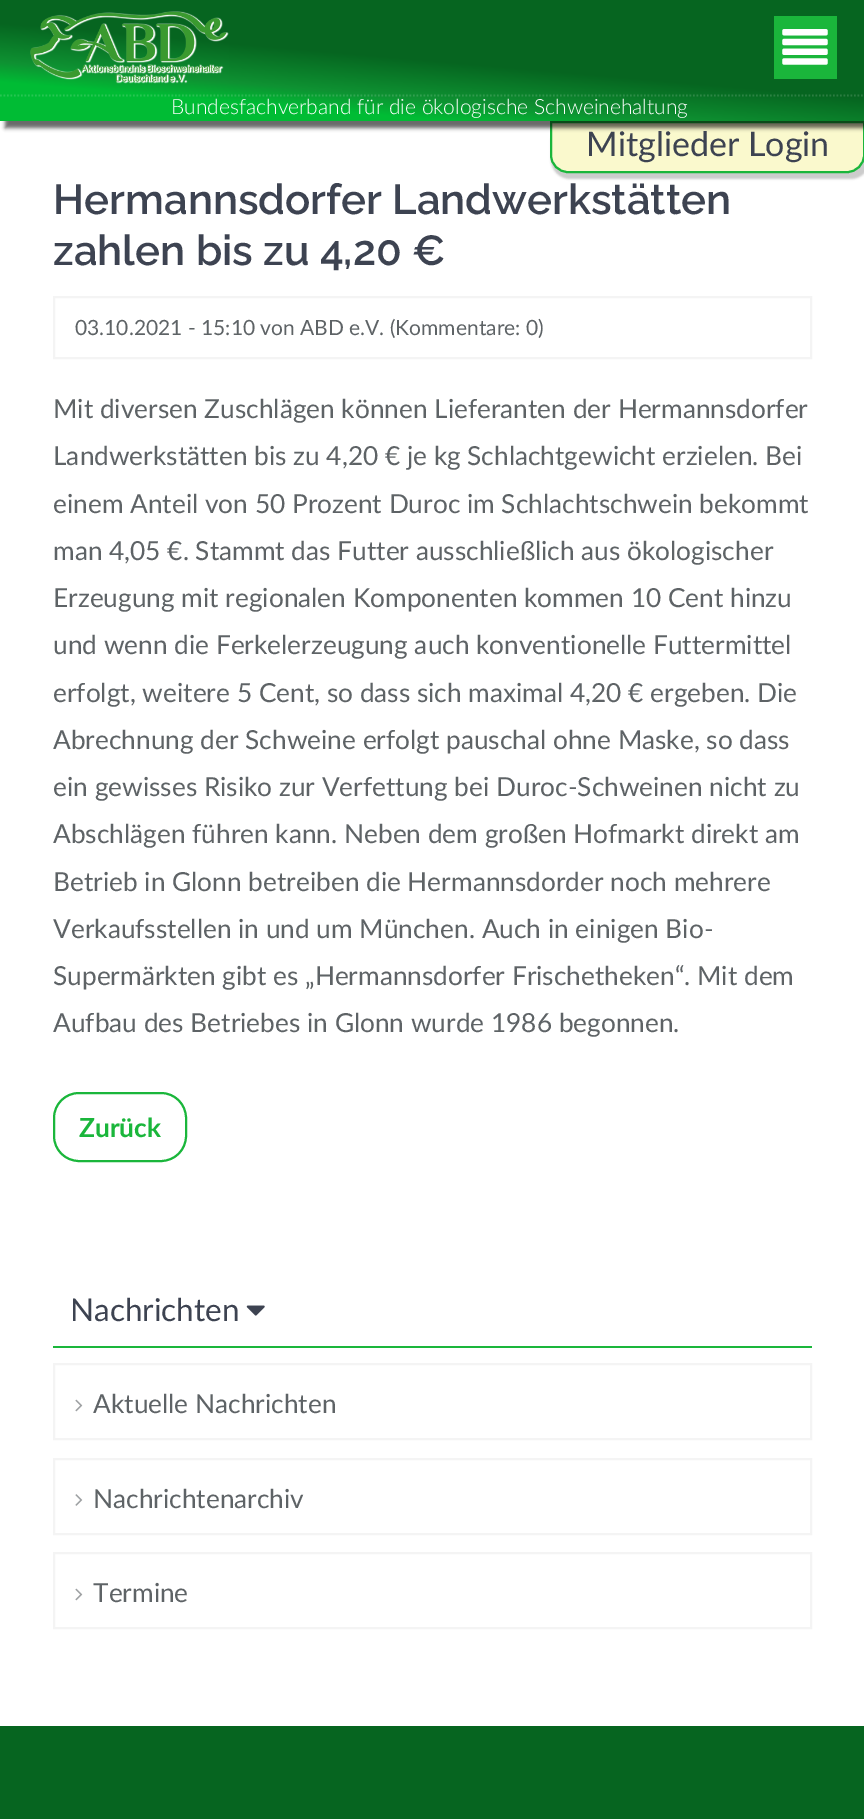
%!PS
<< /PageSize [864 1819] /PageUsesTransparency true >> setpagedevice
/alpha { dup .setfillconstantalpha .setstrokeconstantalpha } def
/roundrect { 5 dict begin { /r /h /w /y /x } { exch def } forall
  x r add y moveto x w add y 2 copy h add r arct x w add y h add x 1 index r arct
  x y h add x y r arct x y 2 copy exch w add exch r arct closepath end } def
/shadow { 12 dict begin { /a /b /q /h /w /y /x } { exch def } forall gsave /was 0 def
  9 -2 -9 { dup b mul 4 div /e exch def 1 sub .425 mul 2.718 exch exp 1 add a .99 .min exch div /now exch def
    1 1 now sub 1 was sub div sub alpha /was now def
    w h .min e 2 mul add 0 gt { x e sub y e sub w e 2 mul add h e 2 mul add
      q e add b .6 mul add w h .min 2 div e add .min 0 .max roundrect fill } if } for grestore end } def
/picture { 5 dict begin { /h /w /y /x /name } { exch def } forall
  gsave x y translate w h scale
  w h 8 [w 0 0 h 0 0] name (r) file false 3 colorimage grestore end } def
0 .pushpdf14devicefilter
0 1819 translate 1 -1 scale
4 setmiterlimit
1 setgray
0 0 864 1819 rectfill
0 setgray
551 123 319 56 19 1 0.2 shadow
0.98 0.976 0.804 setrgbcolor
newpath 551 122 moveto 864 122 lineto 864 155 lineto 864 164.5 856.5 172 847 172 curveto 568 172 lineto 558.5 172 551 164.5 551 155 curveto closepath gsave fill grestore
0.102 0.714 0.231 setrgbcolor
2 setlinewidth
stroke
0 setgray
5 0 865 128 0 2 0.6 shadow
gsave newpath 0 0 moveto 864 0 lineto 864 121 lineto 0 121 lineto closepath clip newpath
<< /ShadingType 2 /ColorSpace /DeviceRGB /Coords [424 158 441 -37] /Extend [true true] /Function << /FunctionType 3 /Domain [0 1] /Functions [<< /FunctionType 2 /Domain [0 1] /C0 [0 0.737 0.204] /C1 [0 0.737 0.204] /N 1 >> << /FunctionType 2 /Domain [0 1] /C0 [0 0.737 0.204] /C1 [0.055 0.573 0.196] /N 1 >> << /FunctionType 2 /Domain [0 1] /C0 [0.055 0.573 0.196] /C1 [0.024 0.396 0.125] /N 1 >> << /FunctionType 2 /Domain [0 1] /C0 [0.024 0.396 0.125] /C1 [0.024 0.396 0.125] /N 1 >>] /Bounds [0.2 0.3 0.5] /Encode [0 1 0 1 0 1 0 1] >> >> shfill grestore
(img1.rgb) 30 11 199 73 picture
0.102 0.714 0.231 setrgbcolor
774 16 63 63 rectfill
(img2.rgb) 782 29 46 36 picture
0.15 alpha
1 setgray
1.8 setlinewidth
[1.75 1.75] 0 setdash
newpath 0 95.5 moveto 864.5 95.5 lineto stroke
/Lato-Light [21 0 0 -21 0 0] selectfont
1 alpha
171 114 moveto (Bundesfachverband für die ökologische Schweinehaltung) show
/Lato-Regular [34 0 0 -34 0 0] selectfont
0.239 0.263 0.318 setrgbcolor
586 156 moveto (Mitglieder Login) show
/Raleway-SemiBold [42 0 0 -42 0 0] selectfont
53 214 moveto (Hermannsdorfer Landwerkstätten) show
53 265 moveto (zahlen bis zu 4,20 €) show
0.957 setgray
2 setlinewidth
[] 0 setdash
54 297 757 61 rectstroke
/Lato-Regular [21 0 0 -21 0 0] selectfont
0.369 0.388 0.4 setrgbcolor
75 335 moveto (03.10.2021 - 15:10 von ABD e.V. \(Kommentare: 0\)) show
/Lato-Regular [26.25 0 0 -26.25 0 0] selectfont
53 418 moveto (Mit diversen Zuschlägen können Lieferanten der Hermannsdorfer) show
53 465 moveto (Landwerkstätten bis zu 4,20 € je kg Schlachtgewicht erzielen. Bei) show
53 513 moveto (einem Anteil von 50 Prozent Duroc im Schlachtschwein bekommt) show
53 560 moveto (man 4,05 €. Stammt das Futter ausschließlich aus ökologischer) show
53 607 moveto (Erzeugung mit regionalen Komponenten kommen 10 Cent hinzu) show
53 654 moveto (und wenn die Ferkelerzeugung auch konventionelle Futtermittel) show
53 702 moveto (erfolgt, weitere 5 Cent, so dass sich maximal 4,20 € ergeben. Die) show
53 749 moveto (Abrechnung der Schweine erfolgt pauschal ohne Maske, so dass) show
53 796 moveto (ein gewisses Risiko zur Verfettung bei Duroc-Schweinen nicht zu) show
53 843 moveto (Abschlägen führen kann. Neben dem großen Hofmarkt direkt am) show
53 891 moveto (Betrieb in Glonn betreiben die Hermannsdorder noch mehrere) show
53 938 moveto (Verkaufsstellen in und um München. Auch in einigen Bio-) show
53 985 moveto (Supermärkten gibt es „Hermannsdorfer Frischetheken“. Mit dem) show
53 1032 moveto (Aufbau des Betriebes in Glonn wurde 1986 begonnen.) show
0.102 0.714 0.231 setrgbcolor
54 1093 132 68 25 roundrect stroke
/Lato-Bold [26.25 0 0 -26.25 0 0] selectfont
79 1137 moveto (Zurück) show
53 1346 759 2 rectfill
/Lato-Regular [31.5 0 0 -31.5 0 0] selectfont
0.239 0.263 0.318 setrgbcolor
70 1321 moveto (Nachrichten) show
(img3.rgb) 246 1305 19 11 picture
0.957 setgray
54 1364 757 75 rectstroke
(img4.rgb) 75 1399 8 13 picture
/Lato-Regular [26.25 0 0 -26.25 0 0] selectfont
0.369 0.388 0.4 setrgbcolor
93 1413 moveto (Aktuelle Nachrichten) show
0.957 setgray
54 1459 757 75 rectstroke
(img5.rgb) 75 1494 8 12 picture
0.369 0.388 0.4 setrgbcolor
93 1508 moveto (Nachrichtenarchiv) show
0.957 setgray
54 1553 757 75 rectstroke
(img4.rgb) 75 1588 8 13 picture
0.369 0.388 0.4 setrgbcolor
93 1602 moveto (Termine) show
gsave newpath 0 1726 moveto 864 1726 lineto 864 1819 lineto 0 1819 lineto closepath clip newpath
<< /ShadingType 2 /ColorSpace /DeviceRGB /Coords [143 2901 722 1659] /Extend [true true] /Function << /FunctionType 3 /Domain [0 1] /Functions [<< /FunctionType 2 /Domain [0 1] /C0 [0 0.737 0.204] /C1 [0 0.737 0.204] /N 1 >> << /FunctionType 2 /Domain [0 1] /C0 [0 0.737 0.204] /C1 [0.055 0.573 0.196] /N 1 >> << /FunctionType 2 /Domain [0 1] /C0 [0.055 0.573 0.196] /C1 [0.024 0.396 0.125] /N 1 >> << /FunctionType 2 /Domain [0 1] /C0 [0.024 0.396 0.125] /C1 [0.024 0.396 0.125] /N 1 >>] /Bounds [0.2 0.3 0.5] /Encode [0 1 0 1 0 1 0 1] >> >> shfill grestore
.poppdf14devicefilter showpage
